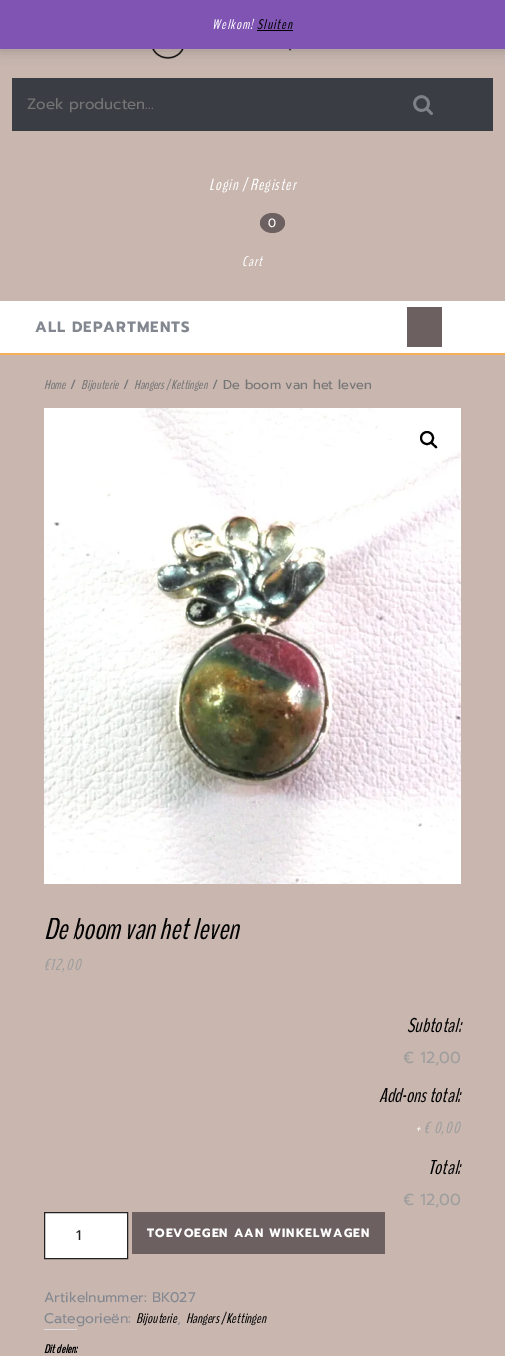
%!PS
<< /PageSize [505 1356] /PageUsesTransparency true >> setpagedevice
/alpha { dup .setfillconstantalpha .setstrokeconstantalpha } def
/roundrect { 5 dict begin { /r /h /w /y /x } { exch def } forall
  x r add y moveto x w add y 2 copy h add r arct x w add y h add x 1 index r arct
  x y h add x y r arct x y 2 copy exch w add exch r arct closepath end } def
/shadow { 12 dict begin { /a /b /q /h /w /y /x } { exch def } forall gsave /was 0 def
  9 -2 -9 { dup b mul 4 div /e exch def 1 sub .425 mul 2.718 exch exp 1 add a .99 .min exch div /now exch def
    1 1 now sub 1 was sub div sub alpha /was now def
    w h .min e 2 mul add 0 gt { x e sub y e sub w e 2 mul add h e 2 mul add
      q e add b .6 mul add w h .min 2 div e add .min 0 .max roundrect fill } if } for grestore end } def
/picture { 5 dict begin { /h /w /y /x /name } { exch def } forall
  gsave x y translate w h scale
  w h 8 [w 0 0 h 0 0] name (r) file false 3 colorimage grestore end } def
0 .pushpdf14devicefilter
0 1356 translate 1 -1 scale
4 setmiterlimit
0.784 0.714 0.686 setrgbcolor
0 0 505 1356 rectfill
(img1.rgb) 152 49 140 10 picture
0 setgray
0 1 505 49 0 7 0.2 shadow
0.498 0.329 0.702 setrgbcolor
0 0 505 49 rectfill
/BenchNine-Italic [14 0 0 -14 0 0] selectfont
1 setgray
212 29 moveto 1 0 (Welkom!) ashow
0 setgray
257 29 moveto 1 0 (Sluiten) ashow
257 30 36 1 rectfill
0.227 0.239 0.263 setrgbcolor
12 78 481 53 rectfill
/Prompt-Regular [15 0 0 -15 0 0] selectfont
0.459 setgray
27 109 moveto (Zoek producten…) show
(img2.rgb) 413 95 20 20 picture
/BenchNine-Italic [16 0 0 -16 0 0] selectfont
1 setgray
209 190 moveto 1 0 (Login / Register) ashow
0.427 0.376 0.376 setrgbcolor
newpath 272.5 213 moveto 279.5 213 285 217.5 285 223 curveto 285 228.5 279.5 233 272.5 233 curveto 265.5 233 260 228.5 260 223 curveto 260 217.5 265.5 213 272.5 213 curveto closepath fill
/Prompt-Regular [12 0 0 -12 0 0] selectfont
1 setgray
268 227 moveto (0) show
/BenchNine-Italic [14 0 0 -14 0 0] selectfont
242 266 moveto 1 0 (Cart) ashow
0 301 505 52 rectfill
0.973 0.682 0.341 setrgbcolor
0 353 505 2 rectfill
/Prompt-Bold [15 0 0 -15 0 0] selectfont
0.51 0.529 0.565 setrgbcolor
35 332 moveto 1 0 (ALL DEPARTMENTS) ashow
0.427 0.376 0.376 setrgbcolor
407 307 35 40 rectfill
/BenchNine-Italic [12.9 0 0 -12.9 0 0] selectfont
0.459 setgray
44 389 moveto (Home) show
/Prompt-Regular [12.9 0 0 -12.9 0 0] selectfont
70 389 moveto (/) show
/BenchNine-Italic [12.9 0 0 -12.9 0 0] selectfont
81 389 moveto (Bijouterie) show
/Prompt-Regular [12.9 0 0 -12.9 0 0] selectfont
123 389 moveto (/) show
/BenchNine-Italic [12.9 0 0 -12.9 0 0] selectfont
134 389 moveto (Hangers / Kettingen) show
/Prompt-Regular [12.9 0 0 -12.9 0 0] selectfont
212 389 moveto (/ De boom van het leven) show
(img3.rgb) 44 408 417 476 picture
0 setgray
2 setlinewidth
newpath 427 438 6 0 360 arc closepath stroke
newpath 431 442.5 moveto 432.5 441 434 444 434.5 444.5 curveto 435.5 445 438 447 437 448 curveto 435.5 449 434 446.5 433.5 446 curveto 432.5 445.5 430 443.5 431 442.5 curveto closepath fill
/BenchNine-Italic [30 0 0 -30 0 0] selectfont
44 939 moveto (De boom van het leven) show
/BenchNine-Italic [16 0 0 -16 0 0] selectfont
0.616 setgray
44 970 moveto 1 0 (€12,00) ashow
/BenchNine-Italic [20 0 0 -20 0 0] selectfont
0 setgray
407 1032 moveto (Subtotal:) show
/Prompt-Regular [16 0 0 -16 0 0] selectfont
0.616 setgray
403 1063 moveto (€ 12,00) show
/BenchNine-Italic [20 0 0 -20 0 0] selectfont
0 setgray
379 1102 moveto (Add-ons total:) show
/BenchNine-Italic [14 0 0 -14 0 0] selectfont
1 setgray
415 1133 moveto 1 0 (+) ashow
/BenchNine-Italic [16 0 0 -16 0 0] selectfont
0.616 setgray
424 1133 moveto 1 0 (€ 0,00) ashow
/BenchNine-Italic [20 0 0 -20 0 0] selectfont
0 setgray
428 1174 moveto (Total:) show
/Prompt-Regular [16 0 0 -16 0 0] selectfont
0.616 setgray
403 1205 moveto (€ 12,00) show
1 setgray
newpath 44.5 1212.5 moveto 127.5 1212.5 lineto 127.5 1258.5 lineto 44.5 1258.5 lineto closepath gsave fill grestore
0.133 setgray
1 setlinewidth
stroke
/Prompt-Regular [14 0 0 -14 0 0] selectfont
76 1240 moveto (1) show
0.427 0.376 0.376 setrgbcolor
132 1212 253 42 rectfill
/Prompt-Bold [12 0 0 -12 0 0] selectfont
1 setgray
147 1237 moveto 1 0 (TOEVOEGEN AAN WINKELWAGEN) ashow
/Prompt-Regular [14 0 0 -14 0 0] selectfont
0.51 0.529 0.565 setrgbcolor
44 1302 moveto (Artikelnummer: BK027) show
44 1323 moveto (Categorieën:) show
/BenchNine-Italic [14 0 0 -14 0 0] selectfont
0 setgray
136 1323 moveto (Bijouterie) show
/Prompt-Regular [14 0 0 -14 0 0] selectfont
0.51 0.529 0.565 setrgbcolor
177 1323 moveto (,) show
/BenchNine-Italic [14 0 0 -14 0 0] selectfont
0 setgray
186 1323 moveto (Hangers / Kettingen) show
0.863 0.863 0.871 setrgbcolor
44 1329 33 1 rectfill
/BenchNine-BoldItalic [12 0 0 -12 0 0] selectfont
0 setgray
44 1353 moveto (Dit delen:) show
.poppdf14devicefilter showpage
